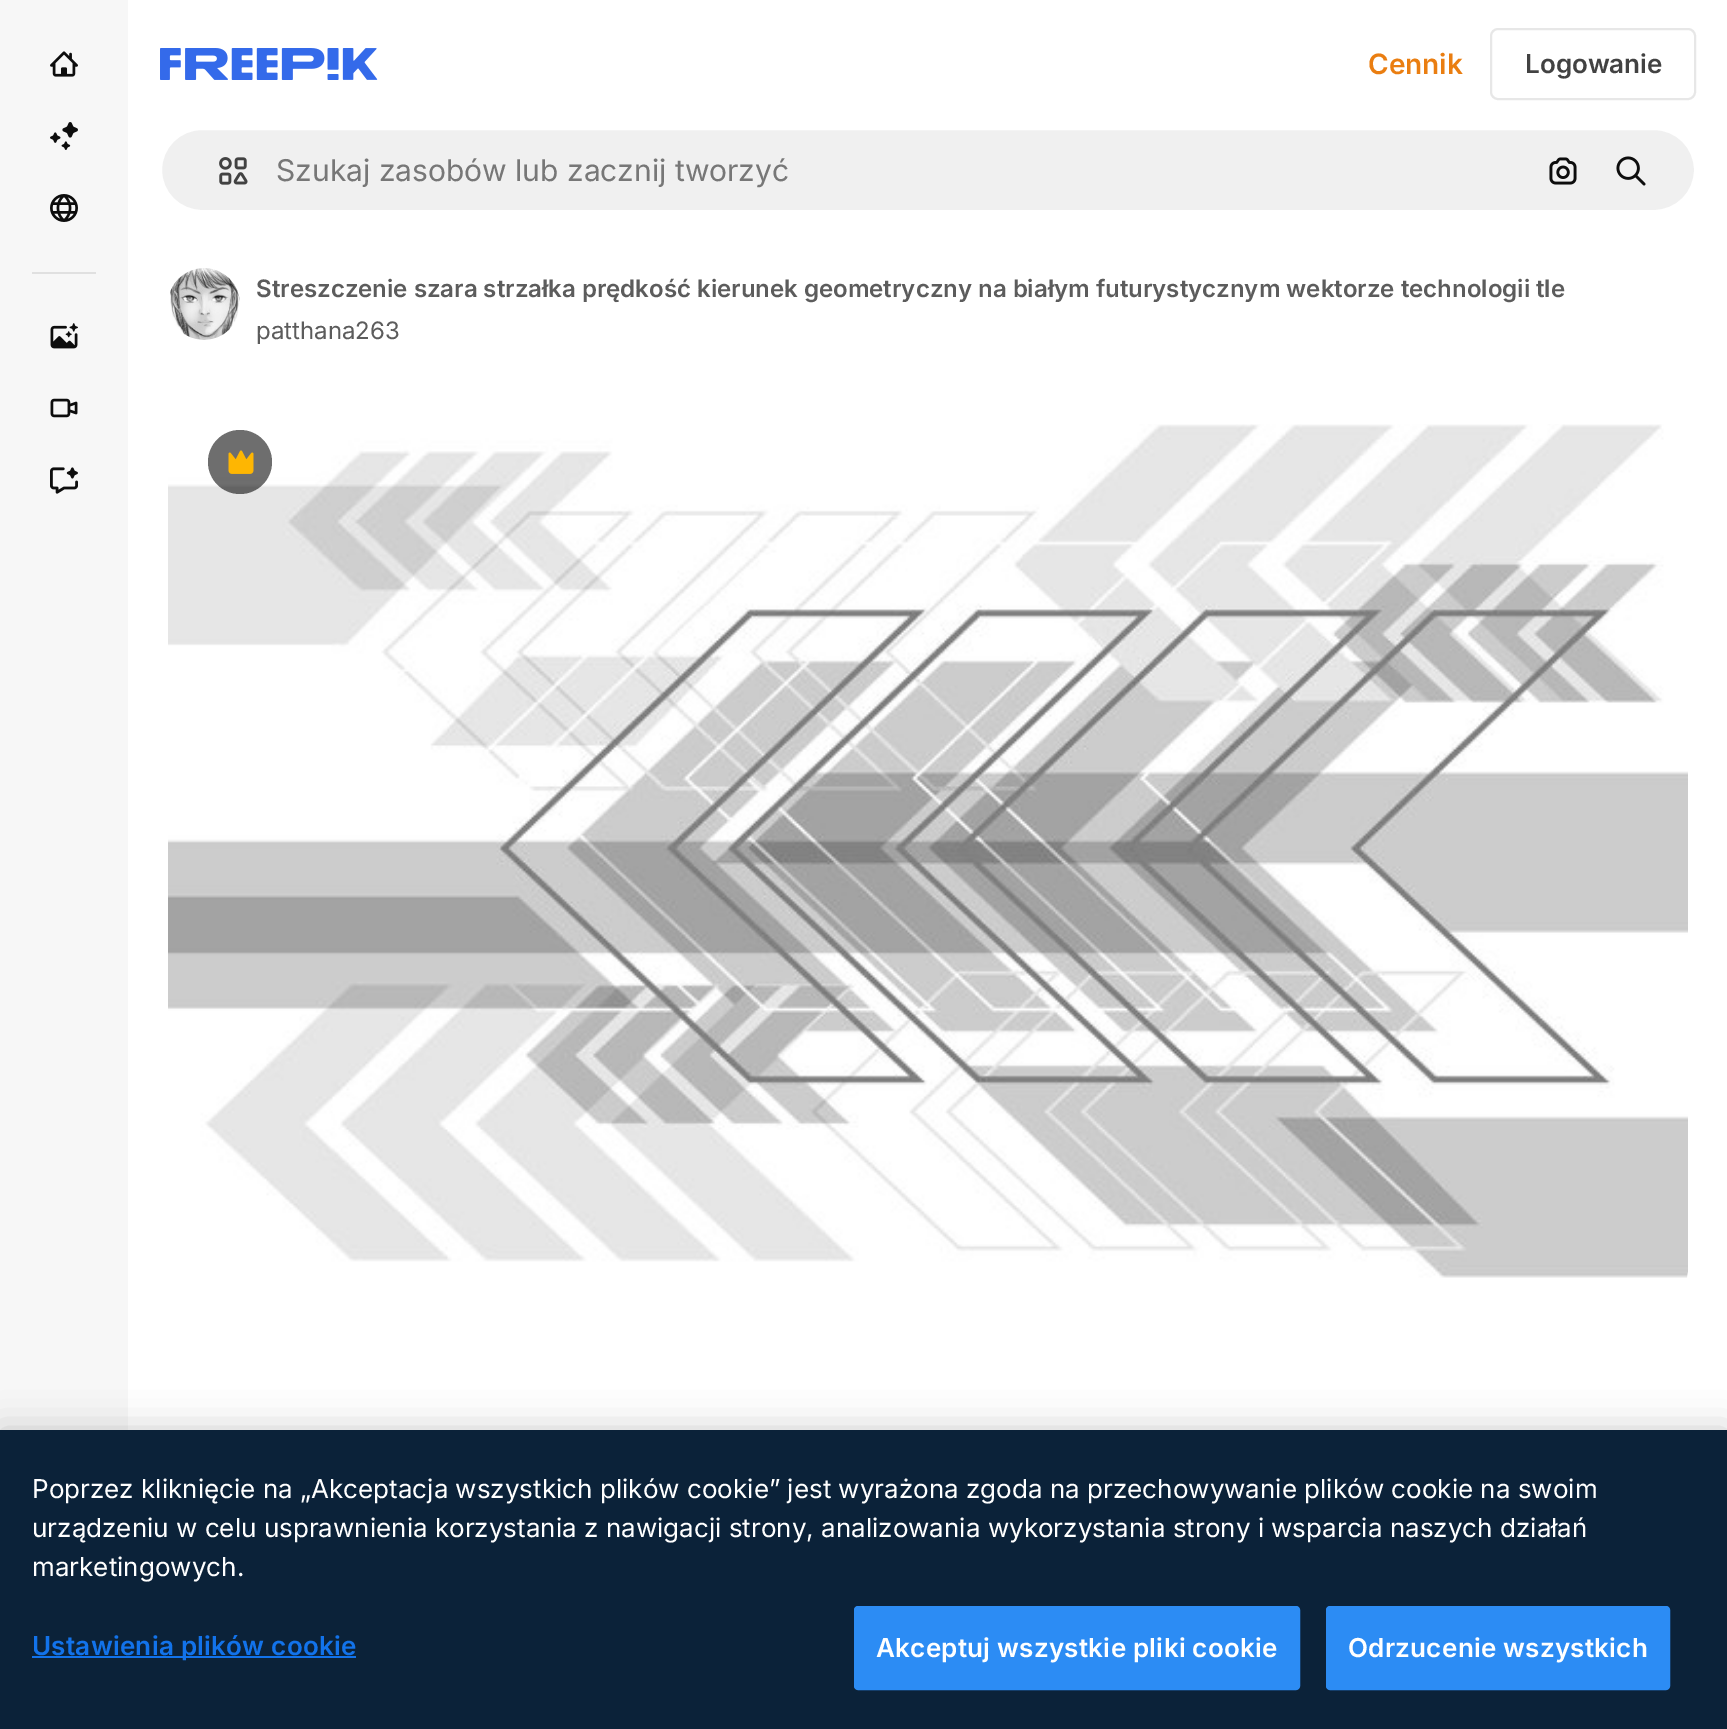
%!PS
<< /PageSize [1727 1729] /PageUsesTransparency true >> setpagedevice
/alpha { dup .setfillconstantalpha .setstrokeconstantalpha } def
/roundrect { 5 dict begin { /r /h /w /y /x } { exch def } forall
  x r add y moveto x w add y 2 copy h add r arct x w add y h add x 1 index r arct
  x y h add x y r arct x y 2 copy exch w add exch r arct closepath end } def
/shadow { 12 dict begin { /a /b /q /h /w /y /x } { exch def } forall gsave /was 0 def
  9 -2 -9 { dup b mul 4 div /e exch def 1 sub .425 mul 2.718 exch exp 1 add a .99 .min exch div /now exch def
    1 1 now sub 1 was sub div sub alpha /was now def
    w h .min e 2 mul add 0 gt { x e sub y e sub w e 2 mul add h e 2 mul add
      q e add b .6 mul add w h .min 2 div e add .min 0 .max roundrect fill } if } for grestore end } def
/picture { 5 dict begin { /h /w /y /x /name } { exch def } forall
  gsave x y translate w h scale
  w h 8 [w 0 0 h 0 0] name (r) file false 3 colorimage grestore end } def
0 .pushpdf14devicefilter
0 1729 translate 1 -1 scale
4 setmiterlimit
1 setgray
0 0 1727 1729 rectfill
0.969 setgray
0 0 128 1430 rectfill
(img1.rgb) 50 51 28 26 picture
(img2.rgb) 50 122 28 28 picture
(img3.rgb) 50 194 28 28 picture
0.878 setgray
32 272 64 2 rectfill
(img4.rgb) 50 323 28 26 picture
(img5.rgb) 50 398 28 20 picture
(img6.rgb) 50 467 28 27 picture
(img7.rgb) 160 48 218 32 picture
/Inter-SemiBold [28 0 0 -28 0 0] selectfont
0.918 0.494 0.067 setrgbcolor
1368 74 moveto (Cennik) show
0.906 setgray
2 setlinewidth
1491 29 204 70 7 roundrect stroke
/Inter-SemiBold [26 0 0 -26 0 0] selectfont
0.259 setgray
1525 73 moveto (Logowanie) show
0.941 setgray
161 129 1534 82 41 roundrect gsave fill grestore
1 setgray
stroke
(img8.rgb) 219 157 29 28 picture
/Inter-Regular [30 0 0 -30 0 0] selectfont
0.467 setgray
276 181 moveto (Szukaj zasobów lub zacznij tworzyć) show
(img9.rgb) 1549 157 28 28 picture
(img10.rgb) 1616 156 30 30 picture
(img11.rgb) 170 268 70 72 picture
/Inter-SemiBold [24 0 0 -24 0 0] selectfont
0.361 setgray
256 297 moveto (Streszczenie szara strzałka prędkość kierunek geometryczny na białym futurystycznym wektorze technologii tle) show
/Inter-Regular [24 0 0 -24 0 0] selectfont
256 339 moveto (patthana263) show
(img12.rgb) 168 424 1520 854 picture
0.6 alpha
0.051 setgray
newpath 240 462 32 0 360 arc closepath fill
1 alpha
(img13.rgb) 228 450 26 24 picture
0 setgray
0 1430 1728 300 0 18 0.2 shadow
0.043 0.133 0.224 setrgbcolor
0 1430 1727 299 rectfill
/Inter-Regular [26.02 0 0 -26.02 0 0] selectfont
1 setgray
32 1498 moveto (Poprzez kliknięcie na „Akceptacja wszystkich plików cookie” jest wyrażona zgoda na przechowywanie plików cookie na swoim) show
32 1537 moveto (urządzeniu w celu usprawnienia korzystania z nawigacji strony, analizowania wykorzystania strony i wsparcia naszych działań) show
32 1576 moveto (marketingowych.) show
0.071 0.451 0.922 setrgbcolor
32 1656 324 2 rectfill
/Inter-SemiBold [26.02 0 0 -26.02 0 0] selectfont
32 1655 moveto 0.25 0 (Ustawienia plików cookie) ashow
0.173 0.549 0.957 setrgbcolor
855 1607 444 82 3 roundrect gsave fill grestore
stroke
1 setgray
876 1657 moveto 0.25 0 (Akceptuj wszystkie pliki cookie) ashow
0.173 0.549 0.957 setrgbcolor
1327 1607 342 82 3 roundrect gsave fill grestore
stroke
1 setgray
1348 1657 moveto 0.25 0 (Odrzucenie wszystkich) ashow
.poppdf14devicefilter showpage
